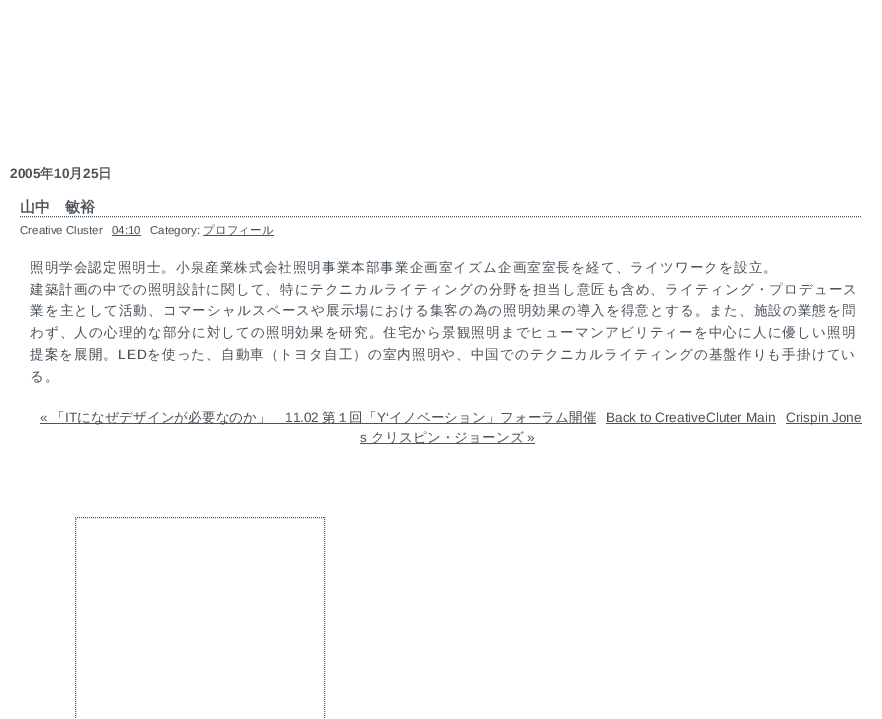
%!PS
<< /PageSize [882 719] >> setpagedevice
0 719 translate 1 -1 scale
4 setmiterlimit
1 setgray
0 0 882 719 rectfill
/LiberationSans-Bold [13.6 0 0 -13.6 0 0] selectfont
0.29 0.322 0.353 setrgbcolor
10 178 moveto (2005) show
/WenQuanYiZenHei-Bold [13.6 0 0 -13.6 0 0] selectfont
40 178 moveto (年) show
/LiberationSans-Bold [13.6 0 0 -13.6 0 0] selectfont
54 178 moveto (10) show
/WenQuanYiZenHei-Bold [13.6 0 0 -13.6 0 0] selectfont
69 178 moveto (月) show
/LiberationSans-Bold [13.6 0 0 -13.6 0 0] selectfont
83 178 moveto (25) show
/WenQuanYiZenHei-Bold [13.6 0 0 -13.6 0 0] selectfont
98 178 moveto (日) show
[1 1] 0 setdash
newpath 20 216.5 moveto 862 216.5 lineto stroke
/WenQuanYiZenHei-Bold [15 0 0 -15 0 0] selectfont
20 212 moveto (山中　敏裕) show
/LiberationSans-Regular [11.5 0 0 -11.5 0 0] selectfont
20 234 moveto (Creative Cluster) show
112 234 moveto (04:10) show
112 235 29 1 rectfill
150 234 moveto (Category:) show
203 235 71 1 rectfill
/WenQuanYiZenHei-Medium [11.5 0 0 -11.5 0 0] selectfont
203 234 moveto (プロフィール) show
/WenQuanYiZenHei-Medium [13.6 0 0 -13.6 0 0] selectfont
30 272 moveto 1 0 (照明学会認定照明士。小泉産業株式会社照明事業本部事業企画室イズム企画室室長を経て、ライツワークを設立。) ashow
30 294 moveto 1 0 (建築計画の中での照明設計に関して、特にテクニカルライティングの分野を担当し意匠も含め、ライティング・プロデュース) ashow
30 315 moveto 1 0 (業を主として活動、コマーシャルスペースや展示場における集客の為の照明効果の導入を得意とする。また、施設の業態を問) ashow
30 337 moveto 1 0 (わず、人の心理的な部分に対しての照明効果を研究。住宅から景観照明までヒューマンアビリティーを中心に人に優しい照明) ashow
30 359 moveto 1 0 (提案を展開。) ashow
/LiberationSans-Regular [13.6 0 0 -13.6 0 0] selectfont
118 359 moveto 1 0 (LED) ashow
/WenQuanYiZenHei-Medium [13.6 0 0 -13.6 0 0] selectfont
147 359 moveto 1 0 (を使った、自動車（トヨタ自工）の室内照明や、中国でのテクニカルライティングの基盤作りも手掛けてい) ashow
30 381 moveto 1 0 (る。) ashow
/LiberationSans-Regular [13.6 0 0 -13.6 0 0] selectfont
40 422 moveto («) show
40 423 556 1 rectfill
/WenQuanYiZenHei-Medium [13.6 0 0 -13.6 0 0] selectfont
51 422 moveto (「) show
/LiberationSans-Regular [13.6 0 0 -13.6 0 0] selectfont
65 422 moveto (IT) show
/WenQuanYiZenHei-Medium [13.6 0 0 -13.6 0 0] selectfont
77 422 moveto (になぜデザインが必要なのか」) show
/LiberationSans-Regular [13.6 0 0 -13.6 0 0] selectfont
285 422 moveto (11.02) show
/WenQuanYiZenHei-Medium [13.6 0 0 -13.6 0 0] selectfont
322 422 moveto (第１回「) show
/LiberationSans-Regular [13.6 0 0 -13.6 0 0] selectfont
377 422 moveto (Y‘) show
/WenQuanYiZenHei-Medium [13.6 0 0 -13.6 0 0] selectfont
389 422 moveto (イノベーション」フォーラム開催) show
/LiberationSans-Regular [13.6 0 0 -13.6 0 0] selectfont
606 422 moveto (Back to CreativeCluter Main) show
606 423 170 1 rectfill
786 423 76 1 rectfill
786 422 moveto (Crispin Jone) show
360 442 moveto (s) show
360 443 175 1 rectfill
/WenQuanYiZenHei-Medium [13.6 0 0 -13.6 0 0] selectfont
371 442 moveto (クリスピン・ジョーンズ) show
/LiberationSans-Regular [13.6 0 0 -13.6 0 0] selectfont
527 442 moveto (») show
newpath 75 517.5 moveto 325 517.5 lineto stroke
newpath 324.5 517 moveto 324.5 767 lineto stroke
newpath 75.5 517 moveto 75.5 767 lineto stroke
showpage
